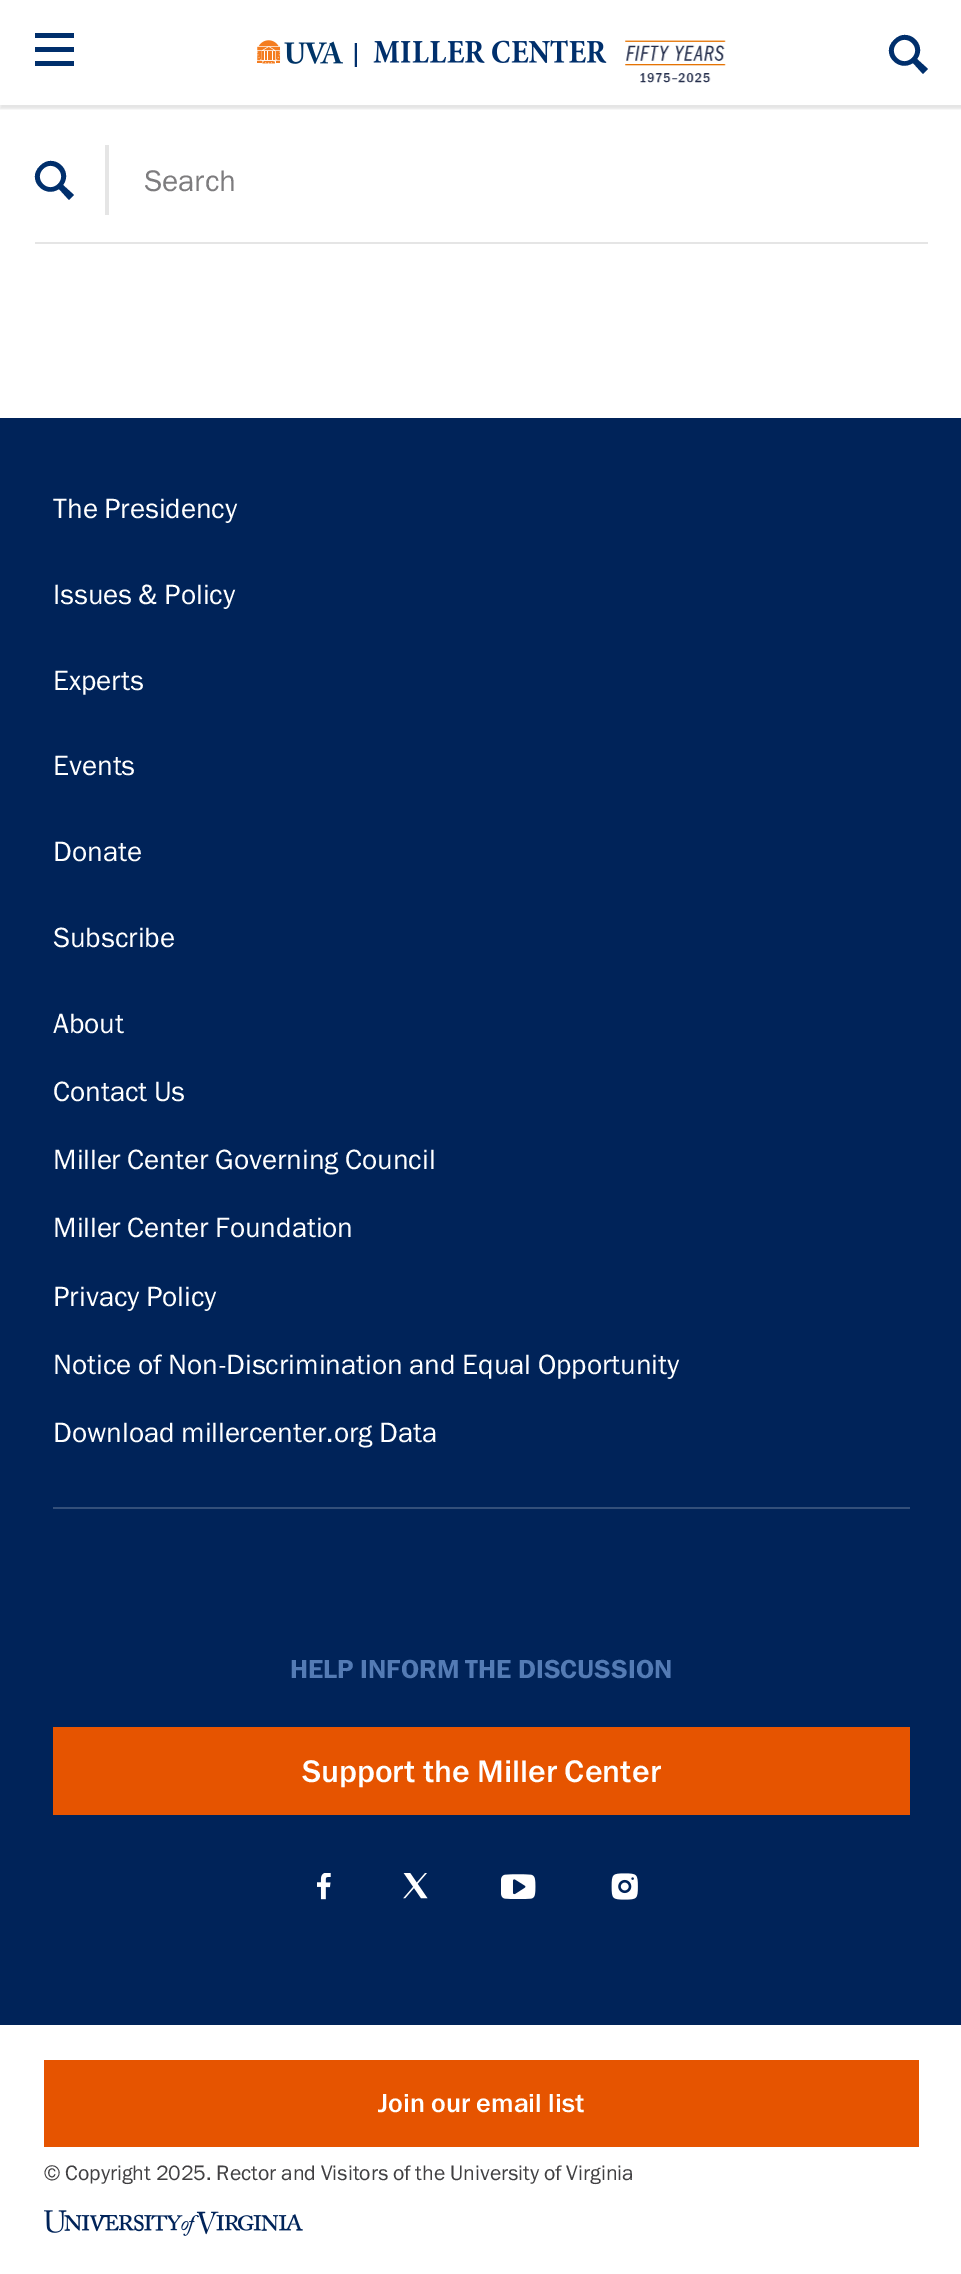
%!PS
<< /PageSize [961 2274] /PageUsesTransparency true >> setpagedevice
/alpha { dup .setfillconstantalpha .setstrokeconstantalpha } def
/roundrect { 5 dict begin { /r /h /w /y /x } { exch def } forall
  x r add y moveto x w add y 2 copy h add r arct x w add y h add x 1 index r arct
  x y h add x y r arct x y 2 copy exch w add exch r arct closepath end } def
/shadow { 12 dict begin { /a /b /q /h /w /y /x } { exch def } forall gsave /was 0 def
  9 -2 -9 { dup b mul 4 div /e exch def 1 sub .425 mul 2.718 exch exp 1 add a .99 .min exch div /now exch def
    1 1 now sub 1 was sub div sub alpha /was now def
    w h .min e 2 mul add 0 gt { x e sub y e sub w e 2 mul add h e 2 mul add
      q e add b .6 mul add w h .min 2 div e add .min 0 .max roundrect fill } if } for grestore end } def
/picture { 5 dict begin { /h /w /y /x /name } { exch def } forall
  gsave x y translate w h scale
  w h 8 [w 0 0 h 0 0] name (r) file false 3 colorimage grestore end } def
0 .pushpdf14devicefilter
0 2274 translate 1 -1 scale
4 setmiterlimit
1 setgray
0 0 961 2274 rectfill
gsave
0 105 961 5 rectclip
0 setgray
0 4 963 105 0 1 0.1 shadow
grestore
0 0.184 0.424 setrgbcolor
35 47 39 5 rectfill
35 33 39 5 rectfill
35 61 39 5 rectfill
(img1.rgb) 257 40 86 24 picture
/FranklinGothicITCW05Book-Regular [35 0 0 -35 0 0] selectfont
347 67 moveto (|) show
(img2.rgb) 373 40 234 23 picture
(img3.rgb) 625 40 101 43 picture
newpath 928 69 moveto 917 59 lineto 928 44 907 26 894 40 curveto 880 53 898 73 913 63 curveto 923 74 lineto closepath 897 58 moveto 887 48 902 33 912 43 curveto 922 53 907 68 897 58 curveto closepath fill
0.898 setgray
35 242 893 2 rectfill
0 0.184 0.424 setrgbcolor
newpath 74 195 moveto 63 185 lineto 74 170 53 152 40 166 curveto 26 179 44 199 59 189 curveto 69 200 lineto closepath 43 184 moveto 33 174 48 159 58 169 curveto 68 179 53 194 43 184 curveto closepath fill
0.898 setgray
105 145 4 70 rectfill
/FranklinGothicITCW05Book-Regular [30 0 0 -30 0 0] selectfont
0.49 0.486 0.494 setrgbcolor
144 191 moveto (Search) show
0 0.137 0.349 setrgbcolor
0 418 961 1607 rectfill
/FranklinGothicITCW05Book-Regular [28 0 0 -28 0 0] selectfont
1 setgray
53 518 moveto (The Presidency) show
53 604 moveto (Issues & Policy) show
53 690 moveto (Experts) show
53 775 moveto (Events) show
53 861 moveto (Donate) show
53 947 moveto (Subscribe) show
53 1033 moveto (About) show
53 1101 moveto (Contact Us) show
53 1169 moveto (Miller Center Governing Council) show
53 1237 moveto (Miller Center Foundation) show
53 1306 moveto (Privacy Policy) show
53 1374 moveto (Notice of Non-Discrimination and Equal Opportunity) show
53 1442 moveto (Download millercenter.org Data) show
0.2 0.31 0.478 setrgbcolor
53 1507 857 2 rectfill
/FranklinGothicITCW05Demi-SemiBold [26.25 0 0 -26.25 0 0] selectfont
0.329 0.482 0.706 setrgbcolor
290 1678 moveto (HELP INFORM THE DISCUSSION) show
0.902 0.329 0 setrgbcolor
53 1727 857 88 rectfill
/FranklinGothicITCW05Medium-Medium [31.5 0 0 -31.5 0 0] selectfont
1 setgray
302 1782 moveto (Support the Miller Center) show
(img4.rgb) 317 1873 14 27 picture
(img5.rgb) 403 1873 25 26 picture
(img6.rgb) 501 1874 35 25 picture
(img7.rgb) 611 1873 27 27 picture
0.902 0.329 0 setrgbcolor
44 2060 875 87 rectfill
/FranklinGothicITCW05Medium-Medium [26.25 0 0 -26.25 0 0] selectfont
1 setgray
378 2112 moveto (Join our email list) show
/FranklinGothicITCW05Book-Regular [21 0 0 -21 0 0] selectfont
0.255 0.251 0.259 setrgbcolor
44 2180 moveto (© Copyright 2025. Rector and Visitors of the University of Virginia) show
(img8.rgb) 44 2210 259 26 picture
.poppdf14devicefilter showpage
